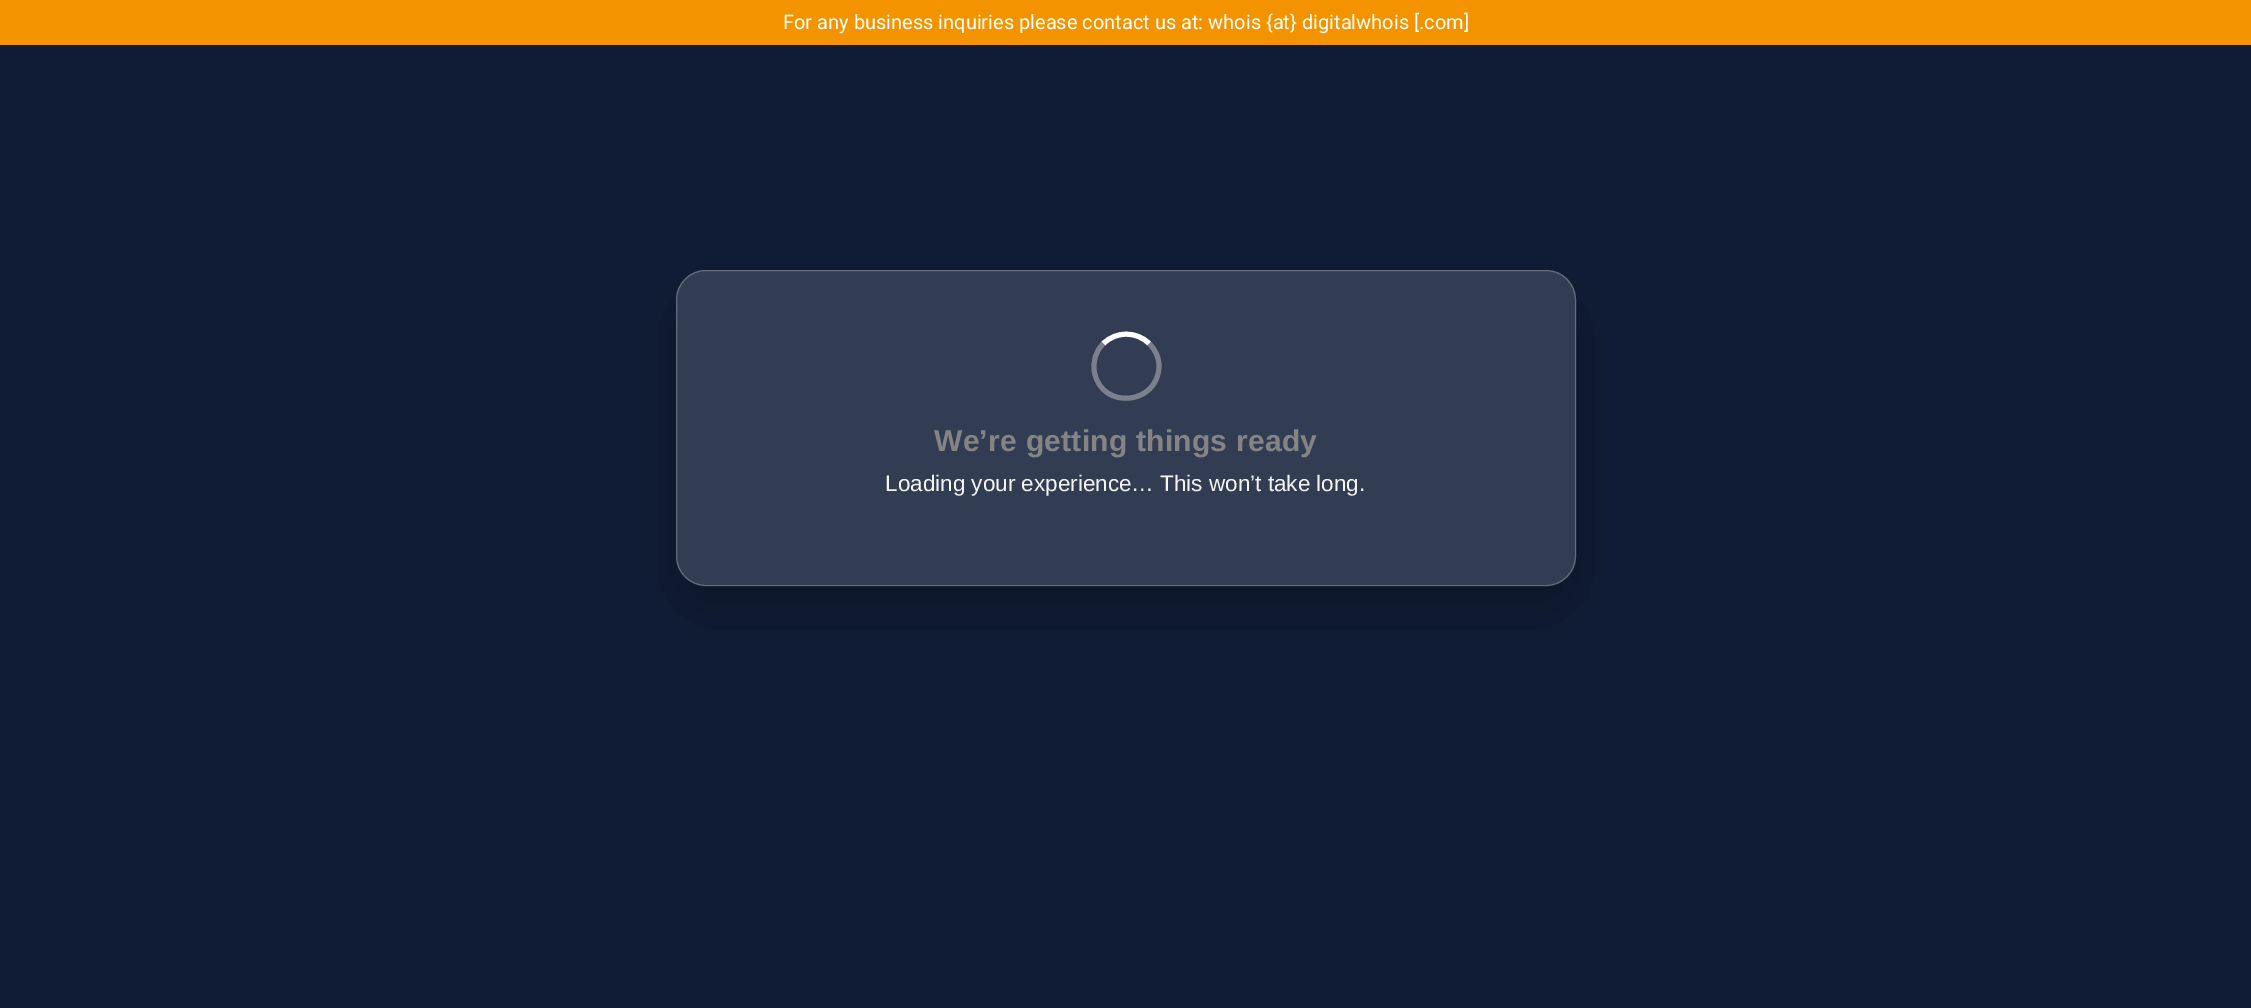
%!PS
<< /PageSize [2251 1008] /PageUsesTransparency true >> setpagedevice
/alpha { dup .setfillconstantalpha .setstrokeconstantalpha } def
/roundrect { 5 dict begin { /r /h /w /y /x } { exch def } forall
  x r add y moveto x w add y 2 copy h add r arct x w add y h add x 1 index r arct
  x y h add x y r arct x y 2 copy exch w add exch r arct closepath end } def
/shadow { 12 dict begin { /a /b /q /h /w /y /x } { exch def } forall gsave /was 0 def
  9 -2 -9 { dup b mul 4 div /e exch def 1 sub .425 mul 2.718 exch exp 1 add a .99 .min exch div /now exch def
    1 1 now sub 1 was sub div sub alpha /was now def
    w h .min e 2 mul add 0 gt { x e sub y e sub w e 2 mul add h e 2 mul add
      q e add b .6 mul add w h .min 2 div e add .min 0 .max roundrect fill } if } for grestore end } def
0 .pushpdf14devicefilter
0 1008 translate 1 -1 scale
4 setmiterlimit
0.063 0.11 0.212 setrgbcolor
0 0 2251 1008 rectfill
0.957 0.576 0 setrgbcolor
0 0 2251 45 rectfill
/Roboto-Regular [20 0 0 -20 0 0] selectfont
1 setgray
783 29 moveto (For any business inquiries please contact us at: whois {at} digitalwhois [.com]) show
gsave
newpath 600 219 moveto 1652 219 lineto 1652 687 lineto 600 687 lineto closepath 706 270 moveto 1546 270 lineto 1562.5 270 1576 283.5 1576 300 curveto 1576 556 lineto 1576 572.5 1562.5 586 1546 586 curveto 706 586 lineto 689.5 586 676 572.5 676 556 curveto 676 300 lineto 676 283.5 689.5 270 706 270 curveto closepath eoclip newpath
0 setgray
676 295 900 316 30 25 0.25 shadow
grestore
0.14 alpha
676 270 900 316 30 roundrect fill
0.25 alpha
676.5 270.5 899 315 29.5 roundrect stroke
1 alpha
5 setlinewidth
newpath 1103.5 343.5 moveto 1116 331 1136.5 331 1149 343.5 curveto stroke
0.35 alpha
newpath 1149 343.5 moveto 1155.5 349.5 1159 357.5 1159 366 curveto 1158.5 405 1102 410.5 1094.5 372.5 curveto 1092.5 362 1095.5 351 1103.5 343.5 curveto stroke
/LiberationSans-Bold [30 0 0 -30 0 0] selectfont
1 alpha
0.518 setgray
934 451 moveto 0.25 0 (We’re getting things ready) ashow
/LiberationSans-Regular [22.5 0 0 -22.5 0 0] selectfont
0.961 0.961 0.965 setrgbcolor
885 491 moveto (Loading your experience… This won’t take long.) show
.poppdf14devicefilter showpage
